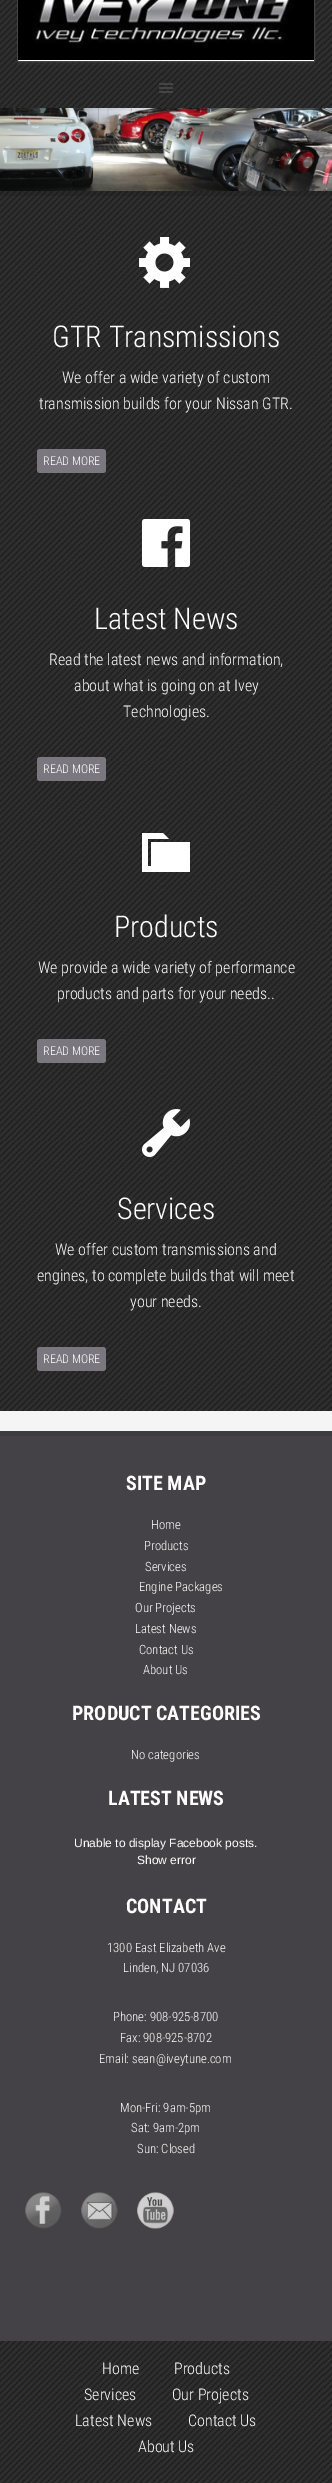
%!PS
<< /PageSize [332 2483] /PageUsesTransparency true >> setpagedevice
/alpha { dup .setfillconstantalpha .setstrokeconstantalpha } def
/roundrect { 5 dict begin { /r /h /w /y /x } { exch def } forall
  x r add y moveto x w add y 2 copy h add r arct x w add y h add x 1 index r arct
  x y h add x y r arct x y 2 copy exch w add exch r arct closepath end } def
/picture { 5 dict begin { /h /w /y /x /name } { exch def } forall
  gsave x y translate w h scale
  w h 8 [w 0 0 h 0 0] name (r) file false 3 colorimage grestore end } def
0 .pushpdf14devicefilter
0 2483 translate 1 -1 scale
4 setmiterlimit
0.961 setgray
0 0 332 2483 rectfill
(img4.rgb) 0 108 332 83 picture
0.05 alpha
0.275 setgray
0 108 332 3 rectfill
1 alpha
(img1.rgb) 0 0 332 108 picture
0.1 alpha
17 62 298 3 rectfill
1 alpha
1 setgray
18 60 296 1 rectfill
0.267 0.259 0.275 setrgbcolor
17.5 -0.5 297 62 rectstroke
(img2.rgb) 18 0 296 60 picture
(img3.rgb) 159 83 14 10 picture
(img5.rgb) 0 191 332 1220 picture
0.1 alpha
0 setgray
0 191 332 5 rectfill
1 alpha
(img6.rgb) 139 237 52 51 picture
/RobotoCondensed-Light [30 0 0 -30 0 0] selectfont
1 setgray
52 347 moveto (GTR Transmissions) show
/RobotoCondensed-Light [16 0 0 -16 0 0] selectfont
62 383 moveto (We offer a wide variety of custom) show
39 409 moveto (transmission builds for your Nissan GTR.) show
0.478 0.471 0.494 setrgbcolor
37 449 69 24 3 roundrect fill
/RobotoCondensed-Light [12 0 0 -12 0 0] selectfont
1 setgray
43 465 moveto (READ MORE) show
(img7.rgb) 141 519 50 48 picture
/RobotoCondensed-Light [30 0 0 -30 0 0] selectfont
94 629 moveto (Latest News) show
/RobotoCondensed-Light [16 0 0 -16 0 0] selectfont
49 665 moveto (Read the latest news and information,) show
74 691 moveto (about what is going on at Ivey) show
123 717 moveto (Technologies.) show
0.478 0.471 0.494 setrgbcolor
37 757 69 24 3 roundrect fill
/RobotoCondensed-Light [12 0 0 -12 0 0] selectfont
1 setgray
43 773 moveto (READ MORE) show
newpath 151 842 moveto 190 842 lineto 190 872 lineto 142 872 lineto 142 833 lineto 163 833 lineto 169 839 lineto 148 839 lineto 148 866 lineto 151 866 lineto closepath fill
/RobotoCondensed-Light [30 0 0 -30 0 0] selectfont
114 937 moveto (Products) show
/RobotoCondensed-Light [16 0 0 -16 0 0] selectfont
38 973 moveto (We provide a wide variety of performance) show
57 999 moveto (products and parts for your needs..) show
0.478 0.471 0.494 setrgbcolor
37 1039 69 24 3 roundrect fill
/RobotoCondensed-Light [12 0 0 -12 0 0] selectfont
1 setgray
43 1055 moveto (READ MORE) show
(img8.rgb) 142 1109 48 48 picture
/RobotoCondensed-Light [30 0 0 -30 0 0] selectfont
117 1219 moveto (Services) show
/RobotoCondensed-Light [16 0 0 -16 0 0] selectfont
55 1255 moveto (We offer custom transmissions and) show
37 1281 moveto (engines, to complete builds that will meet) show
130 1307 moveto (your needs.) show
0.478 0.471 0.494 setrgbcolor
37 1347 69 24 3 roundrect fill
/RobotoCondensed-Light [12 0 0 -12 0 0] selectfont
1 setgray
43 1363 moveto (READ MORE) show
0.267 0.259 0.275 setrgbcolor
0 1436 332 905 rectfill
0.239 0.231 0.247 setrgbcolor
0 1431 332 5 rectfill
/RobotoCondensed-Bold [20 0 0 -20 0 0] selectfont
1 setgray
126 1490 moveto (SITE MAP) show
/RobotoCondensed-Light [12.75 0 0 -12.75 0 0] selectfont
151 1529 moveto (Home) show
144 1550 moveto (Products) show
145 1571 moveto (Services) show
139 1591 moveto (Engine Packages) show
135 1612 moveto (Our Projects) show
135 1633 moveto (Latest News) show
139 1654 moveto (Contact Us) show
143 1674 moveto (About Us) show
/RobotoCondensed-Bold [20 0 0 -20 0 0] selectfont
72 1720 moveto (PRODUCT CATEGORIES) show
/RobotoCondensed-Light [12.75 0 0 -12.75 0 0] selectfont
131 1759 moveto (No categories) show
/RobotoCondensed-Bold [20 0 0 -20 0 0] selectfont
108 1805 moveto (LATEST NEWS) show
/LiberationSans-Regular [12 0 0 -12 0 0] selectfont
74 1847 moveto (Unable to display Facebook posts.) show
137 1864 moveto (Show error) show
/RobotoCondensed-Bold [20 0 0 -20 0 0] selectfont
126 1913 moveto (CONTACT) show
/RobotoCondensed-Light [12.75 0 0 -12.75 0 0] selectfont
107 1952 moveto (1300 East Elizabeth Ave) show
123 1972 moveto (Linden, NJ 07036) show
113 2021 moveto (Phone: 908-925-8700) show
120 2042 moveto (Fax: 908-925-8702) show
99 2063 moveto (Email: sean@iveytune.com) show
120 2112 moveto (Mon-Fri: 9am-5pm) show
131 2132 moveto (Sat: 9am-2pm) show
137 2153 moveto (Sun: Closed) show
(img9.rgb) 25 2192 37 37 picture
(img10.rgb) 81 2192 37 37 picture
(img11.rgb) 137 2192 37 37 picture
(img12.rgb) 0 2341 332 142 picture
/RobotoCondensed-Light [16 0 0 -16 0 0] selectfont
102 2374 moveto (Home) show
174 2374 moveto (Products) show
84 2400 moveto (Services) show
172 2400 moveto (Our Projects) show
75 2426 moveto (Latest News) show
188 2426 moveto (Contact Us) show
138 2452 moveto (About Us) show
.poppdf14devicefilter showpage
